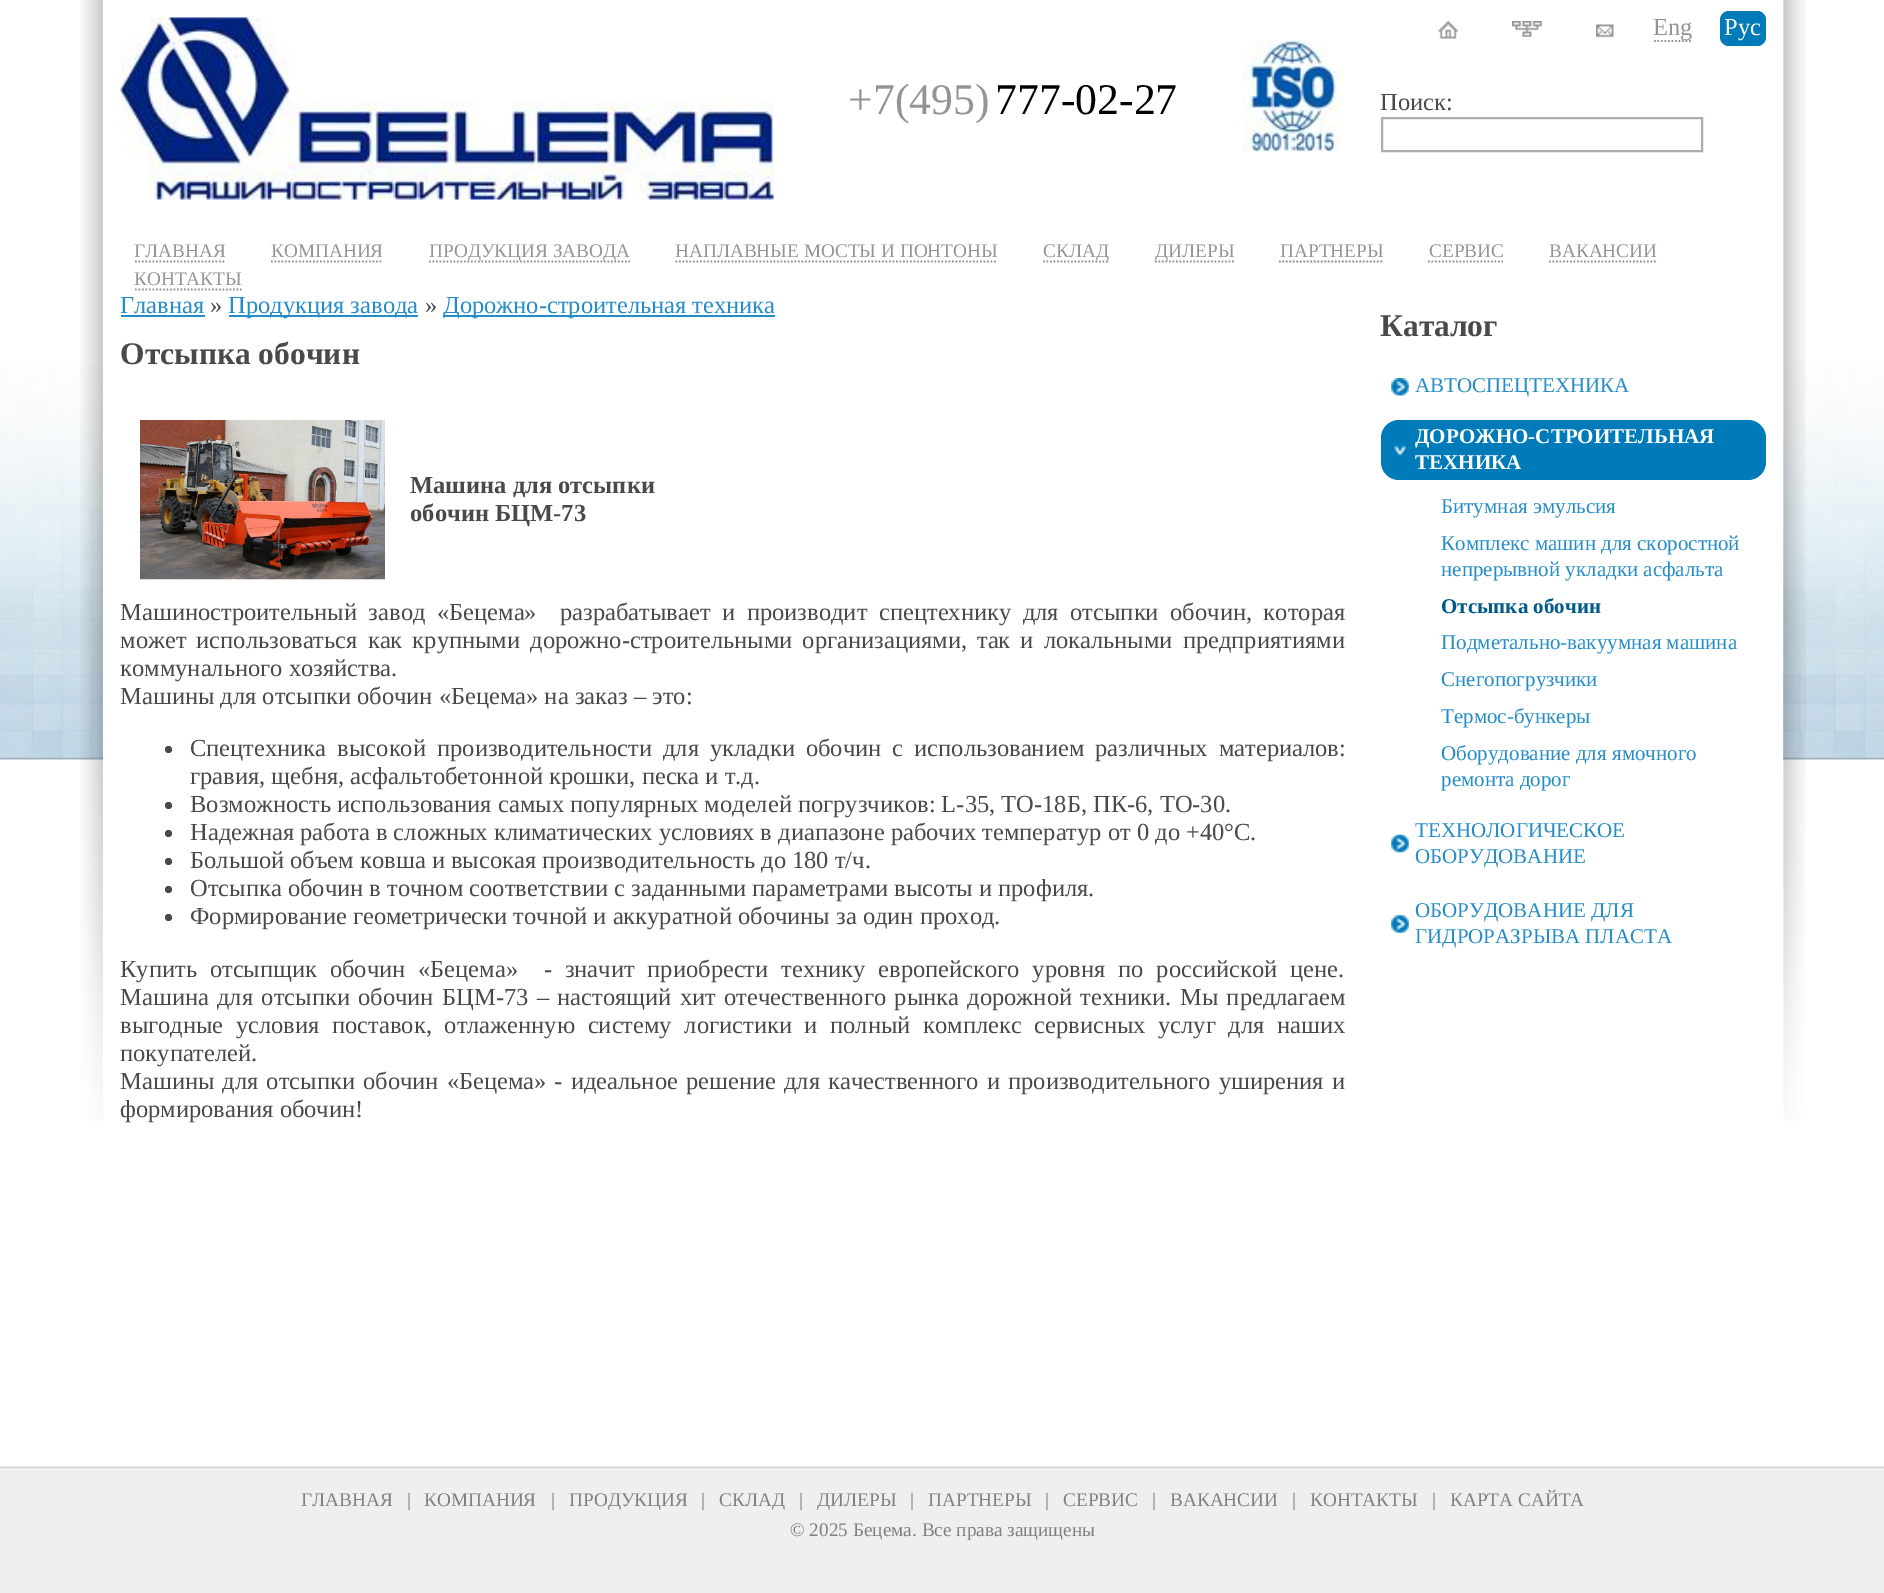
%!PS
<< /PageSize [1884 1593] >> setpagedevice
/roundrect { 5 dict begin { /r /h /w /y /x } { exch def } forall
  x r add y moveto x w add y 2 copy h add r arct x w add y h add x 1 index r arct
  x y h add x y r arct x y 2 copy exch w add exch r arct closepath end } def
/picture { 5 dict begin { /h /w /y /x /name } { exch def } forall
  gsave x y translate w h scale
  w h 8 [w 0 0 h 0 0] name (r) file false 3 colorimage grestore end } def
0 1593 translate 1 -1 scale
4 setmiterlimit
1 setgray
0 0 1884 1593 rectfill
(img1.rgb) 0 364 1884 396 picture
(img2.rgb) 80 0 1726 1121 picture
103 0 1680 1103 rectfill
(img3.rgb) 120 17 654 183 picture
/LiberationSerif-Regular [43.75 0 0 -43.75 0 0] selectfont
0.58 setgray
848 114 moveto (+7\(495\)) show
0 setgray
995 114 moveto (777-02-27) show
(img4.rgb) 1242 40 102 113 picture
(img5.rgb) 1438 21 20 18 picture
(img6.rgb) 1512 21 30 16 picture
(img7.rgb) 1596 24 18 14 picture
0.58 setgray
1.8 setlinewidth
[1.75 1.75] 0 setdash
newpath 1654 41 moveto 1692 41 lineto stroke
/LiberationSerif-Regular [24.5 0 0 -24.5 0 0] selectfont
1653 35 moveto (Eng) show
0 0.478 0.725 setrgbcolor
1720 11 46 35 9 roundrect fill
1 setgray
1724 35 moveto (Рус) show
0.286 setgray
1380 110 moveto (Поиск:) show
0.671 0.678 0.702 setrgbcolor
2 setlinewidth
[] 0 setdash
1382 118 320 33 rectstroke
/LiberationSerif-Regular [19.25 0 0 -19.25 0 0] selectfont
0.58 setgray
134 257 moveto (ГЛАВНАЯ) show
1.8 setlinewidth
[1.75 1.75] 0 setdash
newpath 135 261.5 moveto 226 261.5 lineto stroke
271 257 moveto (КОМПАНИЯ) show
newpath 271 261.5 moveto 383 261.5 lineto stroke
newpath 429 261.5 moveto 630 261.5 lineto stroke
429 257 moveto (ПРОДУКЦИЯ ЗАВОДА) show
675 257 moveto (НАПЛАВНЫЕ МОСТЫ И ПОНТОНЫ) show
newpath 675.5 261.5 moveto 997.5 261.5 lineto stroke
newpath 1043 261.5 moveto 1109.5 261.5 lineto stroke
1043 257 moveto (СКЛАД) show
newpath 1155 261.5 moveto 1234 261.5 lineto stroke
1155 257 moveto (ДИЛЕРЫ) show
1280 257 moveto (ПАРТНЕРЫ) show
newpath 1279 261.5 moveto 1382.5 261.5 lineto stroke
1429 257 moveto (CЕРВИС) show
newpath 1428 261.5 moveto 1503 261.5 lineto stroke
1549 257 moveto (ВАКАНСИИ) show
newpath 1549 261.5 moveto 1657 261.5 lineto stroke
134 285 moveto (КОНТАКТЫ) show
newpath 135 289.5 moveto 241.5 289.5 lineto stroke
/LiberationSerif-Regular [24.5 0 0 -24.5 0 0] selectfont
0.141 0.553 0.78 setrgbcolor
120 313 moveto (Главная) show
121 315 84 2 rectfill
0.286 setgray
210 313 moveto (») show
0.141 0.553 0.78 setrgbcolor
229 315 189 2 rectfill
228 313 moveto (Продукция завода) show
0.286 setgray
425 313 moveto (») show
0.141 0.553 0.78 setrgbcolor
443 315 332 2 rectfill
443 313 moveto (Дорожно-строительная техника) show
/LiberationSerif-Bold [31.5 0 0 -31.5 0 0] selectfont
0.286 setgray
120 364 moveto (Отсыпка обочин) show
(img8.rgb) 140 420 245 160 picture
/LiberationSerif-Bold [24.5 0 0 -24.5 0 0] selectfont
410 493 moveto (Машина для отсыпки) show
410 521 moveto (обочин БЦМ-73) show
/LiberationSerif-Regular [24.5 0 0 -24.5 0 0] selectfont
120 620 moveto 5.5 0 32 (Машиностроительный завод «Бецема»  разрабатывает и производит спецтехнику для отсыпки обочин, которая) widthshow
120 648 moveto 4 0 32 (может использоваться как крупными дорожно-строительными организациями, так и локальными предприятиями) widthshow
120 676 moveto (коммунального хозяйства.) show
120 704 moveto (Машины для отсыпки обочин «Бецема» на заказ – это:) show
newpath 168.5 749.5 3.5 0 360 arc closepath fill
190 756 moveto 5 0 32 (Спецтехника высокой производительности для укладки обочин с использованием различных материалов:) widthshow
190 784 moveto (гравия, щебня, асфальтобетонной крошки, песка и т.д.) show
newpath 168.5 805.5 3.5 0 360 arc closepath fill
190 812 moveto (Возможность использования самых популярных моделей погрузчиков: L-35, TO-18Б, ПК-6, ТО-30.) show
newpath 168.5 833.5 3.5 0 360 arc closepath fill
190 840 moveto (Надежная работа в сложных климатических условиях в диапазоне рабочих температур от 0 до +40°С.) show
newpath 168.5 861.5 3.5 0 360 arc closepath fill
190 868 moveto (Большой объем ковша и высокая производительность до 180 т/ч.) show
newpath 168.5 889.5 3.5 0 360 arc closepath fill
190 896 moveto (Отсыпка обочин в точном соответствии с заданными параметрами высоты и профиля.) show
newpath 168.5 917.5 3.5 0 360 arc closepath fill
190 924 moveto (Формирование геометрически точной и аккуратной обочины за один проход.) show
120 977 moveto 6.75 0 32 (Купить отсыпщик обочин «Бецема»  - значит приобрести технику европейского уровня по российской цене.) widthshow
120 1005 moveto 2.25 0 32 (Машина для отсыпки обочин БЦМ-73 – настоящий хит отечественного рынка дорожной техники. Мы предлагаем) widthshow
120 1033 moveto 6.5 0 32 (выгодные условия поставок, отлаженную систему логистики и полный комплекс сервисных услуг для наших) widthshow
120 1061 moveto (покупателей.) show
120 1089 moveto 2 0 32 (Машины для отсыпки обочин «Бецема» - идеальное решение для качественного и производительного уширения и) widthshow
120 1117 moveto (формирования обочин!) show
/LiberationSerif-Bold [31.5 0 0 -31.5 0 0] selectfont
1380 336 moveto (Каталог) show
(img9.rgb) 1391 378 18 18 picture
/LiberationSerif-Regular [21 0 0 -21 0 0] selectfont
0.141 0.553 0.78 setrgbcolor
1415 392 moveto (АВТОСПЕЦТЕХНИКА) show
0 0.482 0.725 setrgbcolor
1381 420 385 60 18 roundrect fill
(img10.rgb) 1393 445 14 11 picture
/LiberationSerif-Bold [21 0 0 -21 0 0] selectfont
1 setgray
1415 443 moveto (ДОРОЖНО-СТРОИТЕЛЬНАЯ) show
1415 469 moveto (ТЕХНИКА) show
/LiberationSerif-Regular [21 0 0 -21 0 0] selectfont
0.141 0.553 0.78 setrgbcolor
1441 513 moveto (Битумная эмульсия) show
1441 550 moveto (Комплекс машин для скоростной) show
1441 576 moveto (непрерывной укладки асфальта) show
/LiberationSerif-Bold [21 0 0 -21 0 0] selectfont
0 0.349 0.533 setrgbcolor
1441 613 moveto (Отсыпка обочин) show
/LiberationSerif-Regular [21 0 0 -21 0 0] selectfont
0.141 0.553 0.78 setrgbcolor
1441 649 moveto (Подметально-вакуумная машина) show
1441 686 moveto (Снегопогрузчики) show
1441 723 moveto (Термос-бункеры) show
1441 760 moveto (Оборудование для ямочного) show
1441 786 moveto (ремонта дорог) show
(img11.rgb) 1391 834 18 19 picture
1415 837 moveto (ТЕХНОЛОГИЧЕСКОЕ) show
1415 863 moveto (ОБОРУДОВАНИЕ) show
(img12.rgb) 1391 915 18 18 picture
1415 917 moveto (ОБОРУДОВАНИЕ ДЛЯ) show
1415 943 moveto (ГИДРОРАЗРЫВА ПЛАСТА) show
0.937 setgray
0 1470 1884 123 rectfill
(img13.rgb) 0 1466 1884 4 picture
/LiberationSerif-Regular [19.25 0 0 -19.25 0 0] selectfont
0.502 setgray
301 1506 moveto (ГЛАВНАЯ) show
407 1506 moveto (|) show
424 1506 moveto (КОМПАНИЯ) show
551 1506 moveto (|) show
569 1506 moveto (ПРОДУКЦИЯ) show
701 1506 moveto (|) show
719 1506 moveto (СКЛАД) show
799 1506 moveto (|) show
817 1506 moveto (ДИЛЕРЫ) show
910 1506 moveto (|) show
928 1506 moveto (ПАРТНЕРЫ) show
1045 1506 moveto (|) show
1063 1506 moveto (СЕРВИС) show
1152 1506 moveto (|) show
1170 1506 moveto (ВАКАНСИИ) show
1292 1506 moveto (|) show
1310 1506 moveto (КОНТАКТЫ) show
1432 1506 moveto (|) show
1450 1506 moveto (КАРТА САЙТА) show
790 1536 moveto (© 2025 Бецема. Все права защищены) show
showpage
